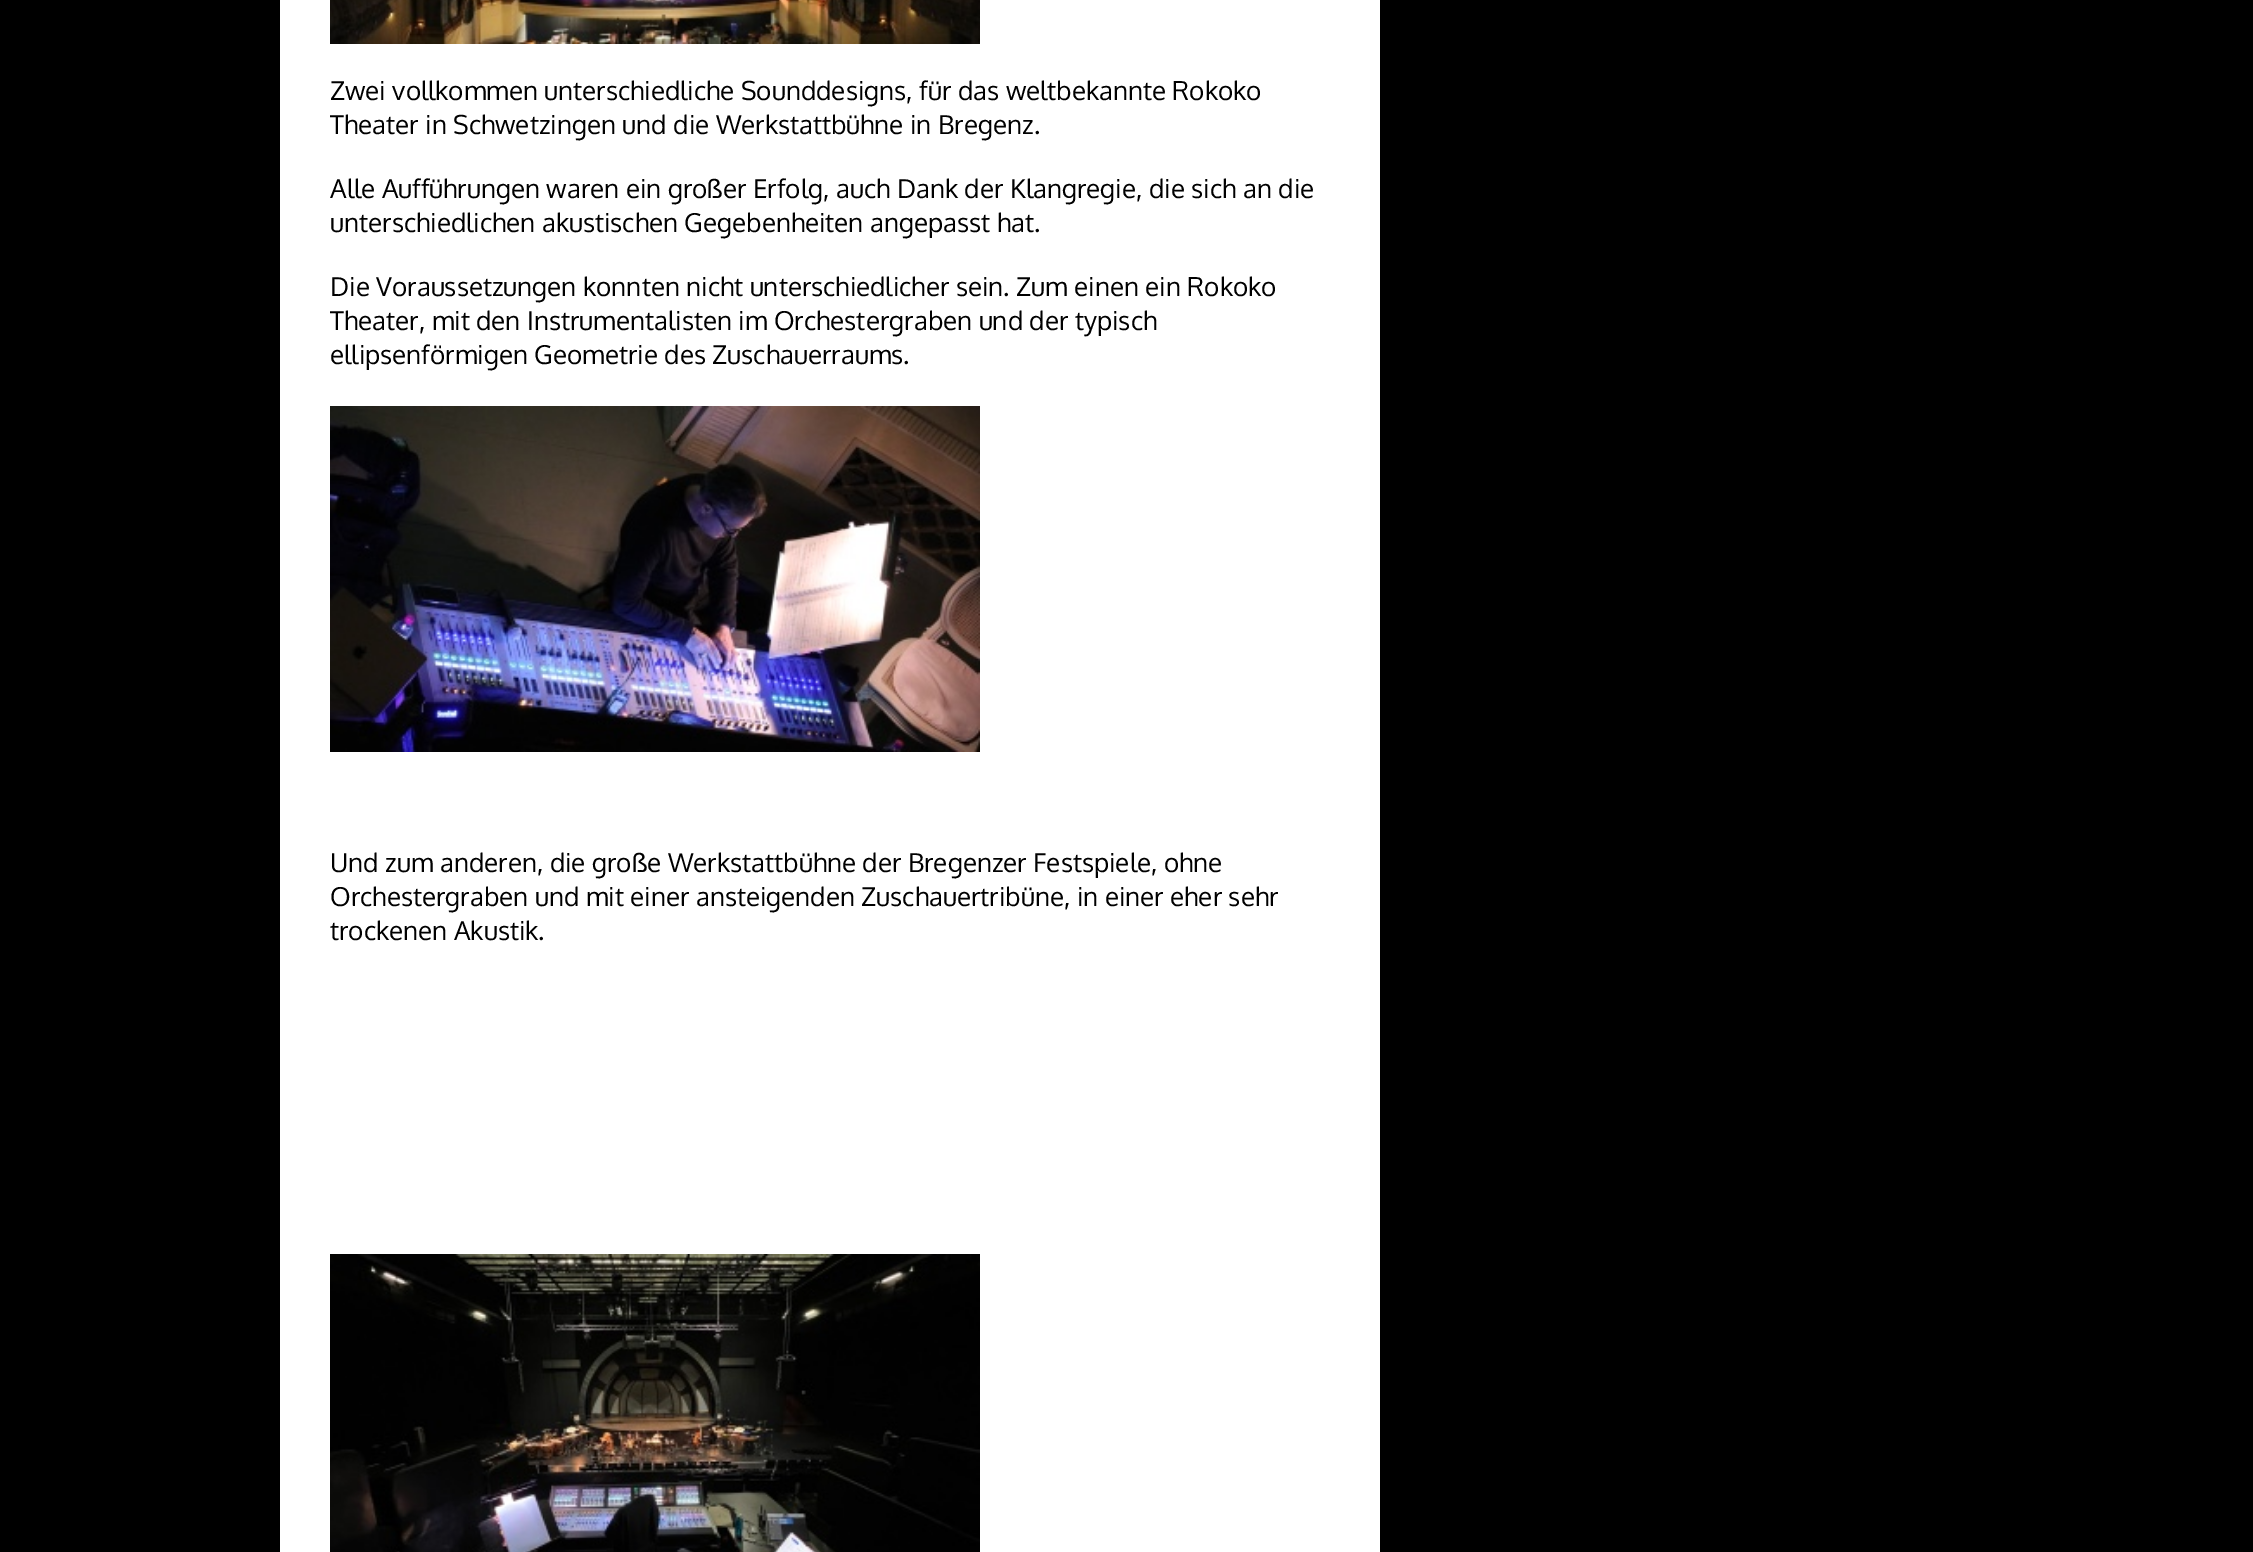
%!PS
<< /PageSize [2253 1552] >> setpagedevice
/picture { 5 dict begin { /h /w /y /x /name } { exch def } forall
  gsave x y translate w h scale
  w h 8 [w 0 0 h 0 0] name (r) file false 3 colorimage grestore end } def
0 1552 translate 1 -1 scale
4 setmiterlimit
0 setgray
0 0 2253 1552 rectfill
1 setgray
280 0 1100 1552 rectfill
(img1.rgb) 330 0 650 44 picture
/Oxygen-Regular [26 0 0 -26 0 0] selectfont
0 setgray
330 100 moveto (Zwei vollkommen unterschiedliche Sounddesigns, für das weltbekannte Rokoko) show
330 134 moveto (Theater in Schwetzingen und die Werkstattbühne in Bregenz.) show
330 198 moveto (Alle Aufführungen waren ein großer Erfolg, auch Dank der Klangregie, die sich an die) show
330 232 moveto (unterschiedlichen akustischen Gegebenheiten angepasst hat.) show
330 296 moveto (Die Voraussetzungen konnten nicht unterschiedlicher sein. Zum einen ein Rokoko) show
330 330 moveto (Theater, mit den Instrumentalisten im Orchestergraben und der typisch) show
330 364 moveto (ellipsenförmigen Geometrie des Zuschauerraums.) show
(img2.rgb) 330 406 650 346 picture
330 872 moveto (Und zum anderen, die große Werkstattbühne der Bregenzer Festspiele, ohne) show
330 906 moveto (Orchestergraben und mit einer ansteigenden Zuschauertribüne, in einer eher sehr) show
330 940 moveto (trockenen Akustik.) show
(img3.rgb) 330 1254 650 298 picture
showpage
